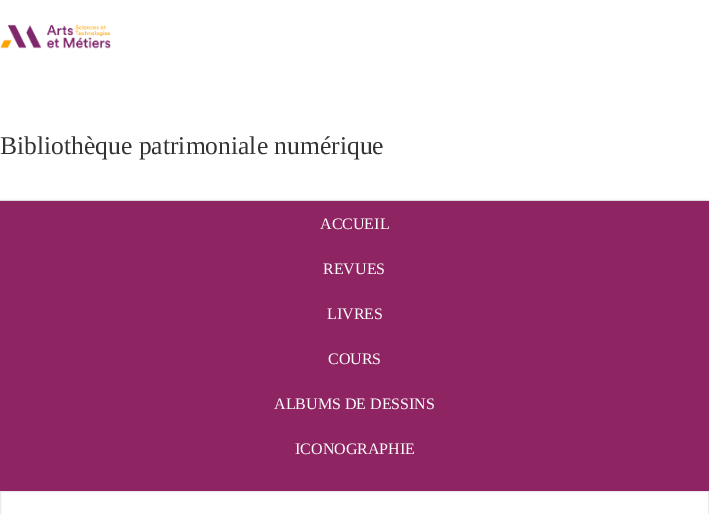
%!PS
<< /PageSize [709 514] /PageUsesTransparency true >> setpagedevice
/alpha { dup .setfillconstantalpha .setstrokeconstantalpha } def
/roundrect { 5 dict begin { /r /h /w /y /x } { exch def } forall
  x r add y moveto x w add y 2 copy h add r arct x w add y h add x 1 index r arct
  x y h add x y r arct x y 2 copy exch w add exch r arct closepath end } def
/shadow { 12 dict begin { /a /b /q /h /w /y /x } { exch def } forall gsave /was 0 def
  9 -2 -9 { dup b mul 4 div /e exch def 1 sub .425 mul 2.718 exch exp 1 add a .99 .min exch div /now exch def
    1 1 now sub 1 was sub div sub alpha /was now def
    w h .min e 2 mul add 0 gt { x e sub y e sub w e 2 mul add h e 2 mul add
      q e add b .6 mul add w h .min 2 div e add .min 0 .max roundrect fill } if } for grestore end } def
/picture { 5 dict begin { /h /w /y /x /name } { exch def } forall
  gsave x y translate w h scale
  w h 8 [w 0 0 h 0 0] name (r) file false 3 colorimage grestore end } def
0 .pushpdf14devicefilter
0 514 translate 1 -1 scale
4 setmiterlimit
1 setgray
0 0 709 514 rectfill
0.878 setgray
0 200 709 1 rectfill
(img1.rgb) 0 24 111 25 picture
/LiberationSerif-Regular [25.6 0 0 -25.6 0 0] selectfont
0.2 setgray
0 154 moveto (Bibliothèque patrimoniale numérique) show
0.6 setgray
0 204 709 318 0 2.5 1 shadow
0.557 0.141 0.384 setrgbcolor
0 201 709 290 rectfill
/LiberationSerif-Regular [16 0 0 -16 0 0] selectfont
1 setgray
320 229 moveto (ACCUEIL) show
323 274 moveto (REVUES) show
327 319 moveto (LIVRES) show
328 364 moveto (COURS) show
274 409 moveto (ALBUMS DE DESSINS) show
295 454 moveto (ICONOGRAPHIE) show
newpath 0.5 491.5 moveto 708.5 491.5 lineto 708.5 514.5 lineto 0.5 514.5 lineto closepath gsave fill grestore
0.914 0.918 0.929 setrgbcolor
stroke
.poppdf14devicefilter showpage
